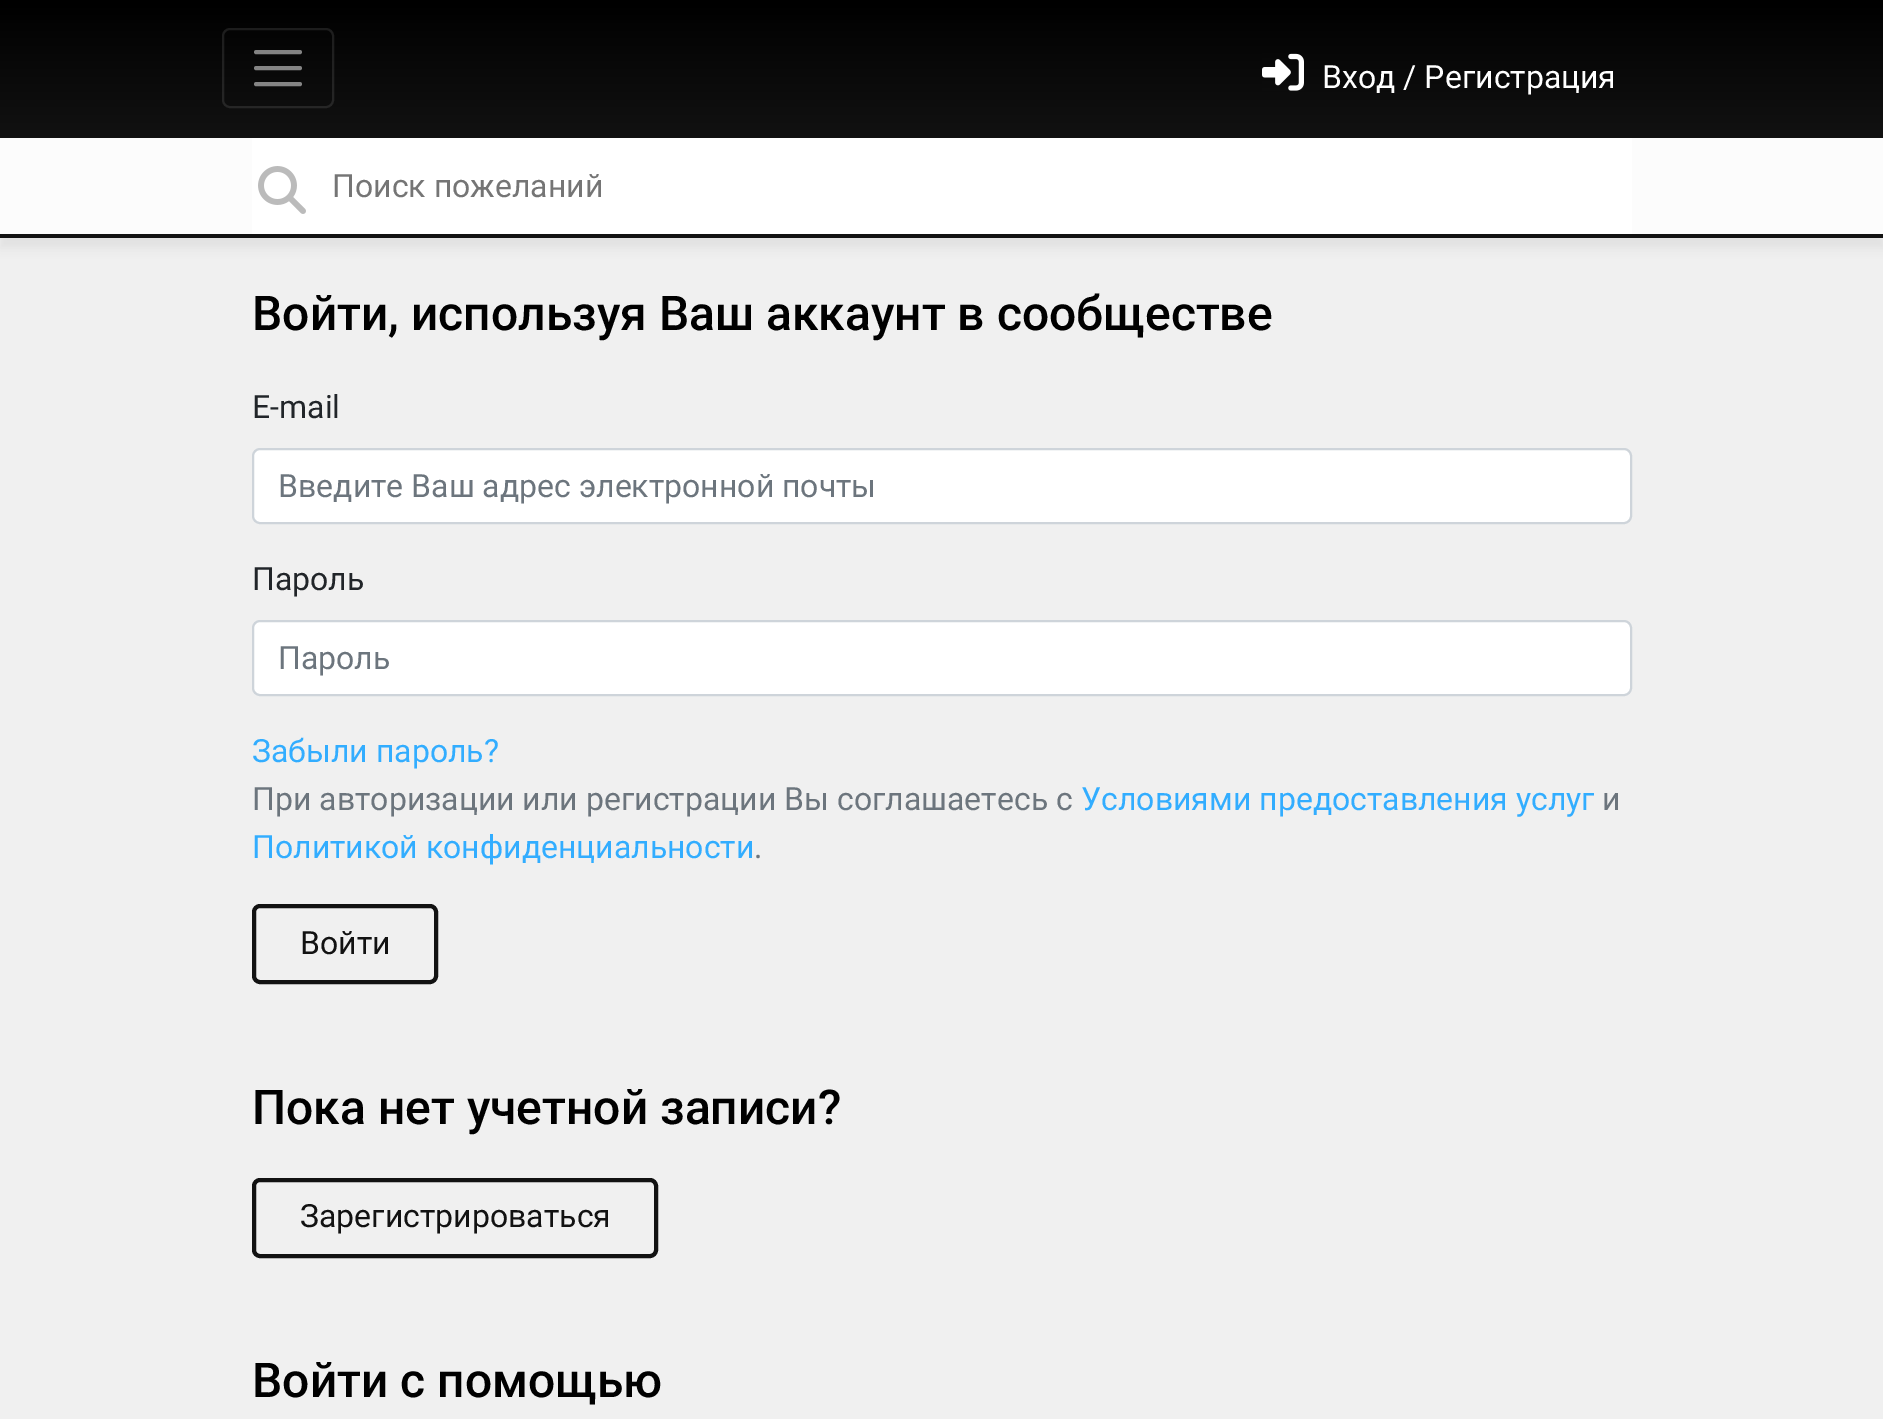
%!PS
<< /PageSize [1883 1419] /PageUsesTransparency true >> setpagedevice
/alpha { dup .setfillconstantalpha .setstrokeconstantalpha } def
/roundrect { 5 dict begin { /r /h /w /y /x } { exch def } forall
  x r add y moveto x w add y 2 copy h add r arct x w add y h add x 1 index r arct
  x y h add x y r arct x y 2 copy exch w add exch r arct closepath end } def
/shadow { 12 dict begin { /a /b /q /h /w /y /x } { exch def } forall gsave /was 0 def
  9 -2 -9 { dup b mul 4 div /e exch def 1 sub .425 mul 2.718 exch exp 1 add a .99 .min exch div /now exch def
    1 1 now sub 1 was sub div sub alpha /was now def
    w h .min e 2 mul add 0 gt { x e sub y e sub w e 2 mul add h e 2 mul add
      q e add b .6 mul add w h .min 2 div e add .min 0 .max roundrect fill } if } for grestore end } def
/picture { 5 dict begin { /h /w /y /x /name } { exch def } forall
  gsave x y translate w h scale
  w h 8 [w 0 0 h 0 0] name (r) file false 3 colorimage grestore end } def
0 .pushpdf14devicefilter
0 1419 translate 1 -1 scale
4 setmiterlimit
0.941 setgray
0 0 1883 1419 rectfill
gsave newpath 0 0 moveto 1883 0 lineto 1883 138 lineto 0 138 lineto closepath clip newpath
<< /ShadingType 2 /ColorSpace /DeviceRGB /Coords [942 0 942 138] /Extend [true true] /Function << /FunctionType 2 /Domain [0 1] /C0 [0 0 0] /C1 [0.071 0.071 0.071] /N 1 >> >> shfill grestore
0.1 alpha
1 setgray
2 setlinewidth
223 29 110 78 7 roundrect stroke
0.5 alpha
4 setlinewidth
1 setlinecap
newpath 256 52 moveto 300 52 lineto 256 68 moveto 300 68 lineto 256 84 moveto 300 84 lineto stroke
1 alpha
(img1.rgb) 1262 53 42 38 picture
/Roboto-Regular [32 0 0 -32 0 0] selectfont
1322 88 moveto (Вход / Регистрация) show
0.392 setgray
0 148 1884 100 0 5 0.1 shadow
0.988 setgray
0 138 1883 96 rectfill
0.071 setgray
0 234 1883 4 rectfill
1 setgray
252 138 1380 96 rectfill
(img2.rgb) 258 166 48 48 picture
0.459 setgray
332 197 moveto (Поиск пожеланий) show
/Roboto-Medium [48 0 0 -48 0 0] selectfont
0 setgray
252 330 moveto (Войти, используя Ваш аккаунт в сообществе) show
/Roboto-Regular [32 0 0 -32 0 0] selectfont
0.129 0.145 0.161 setrgbcolor
252 418 moveto (E-mail) show
1 setgray
253 449 1378 74 7 roundrect gsave fill grestore
0.808 0.831 0.855 setrgbcolor
2 setlinewidth
0 setlinecap
stroke
0.424 0.459 0.49 setrgbcolor
278 497 moveto (Введите Ваш адрес электронной почты) show
0.129 0.145 0.161 setrgbcolor
252 590 moveto (Пароль) show
1 setgray
253 621 1378 74 7 roundrect gsave fill grestore
0.808 0.831 0.855 setrgbcolor
stroke
0.424 0.459 0.49 setrgbcolor
278 669 moveto (Пароль) show
0.196 0.678 1 setrgbcolor
252 762 moveto (Забыли пароль?) show
0.424 0.459 0.49 setrgbcolor
252 810 moveto (При авторизации или регистрации Вы соглашаетесь с) show
0.196 0.678 1 setrgbcolor
1081 810 moveto (Условиями предоставления услуг) show
0.424 0.459 0.49 setrgbcolor
1602 810 moveto (и) show
0.196 0.678 1 setrgbcolor
252 858 moveto (Политикой конфиденциальности) show
0.424 0.459 0.49 setrgbcolor
754 858 moveto (.) show
0.071 setgray
4 setlinewidth
254 906 182 76 6 roundrect stroke
300 954 moveto (Войти) show
/Roboto-Medium [48 0 0 -48 0 0] selectfont
0 setgray
252 1124 moveto (Пока нет учетной записи?) show
0.071 setgray
254 1180 402 76 6 roundrect stroke
/Roboto-Regular [32 0 0 -32 0 0] selectfont
300 1227 moveto (Зарегистрироваться) show
/Roboto-Medium [48 0 0 -48 0 0] selectfont
0 setgray
252 1397 moveto (Войти с помощью) show
.poppdf14devicefilter showpage
